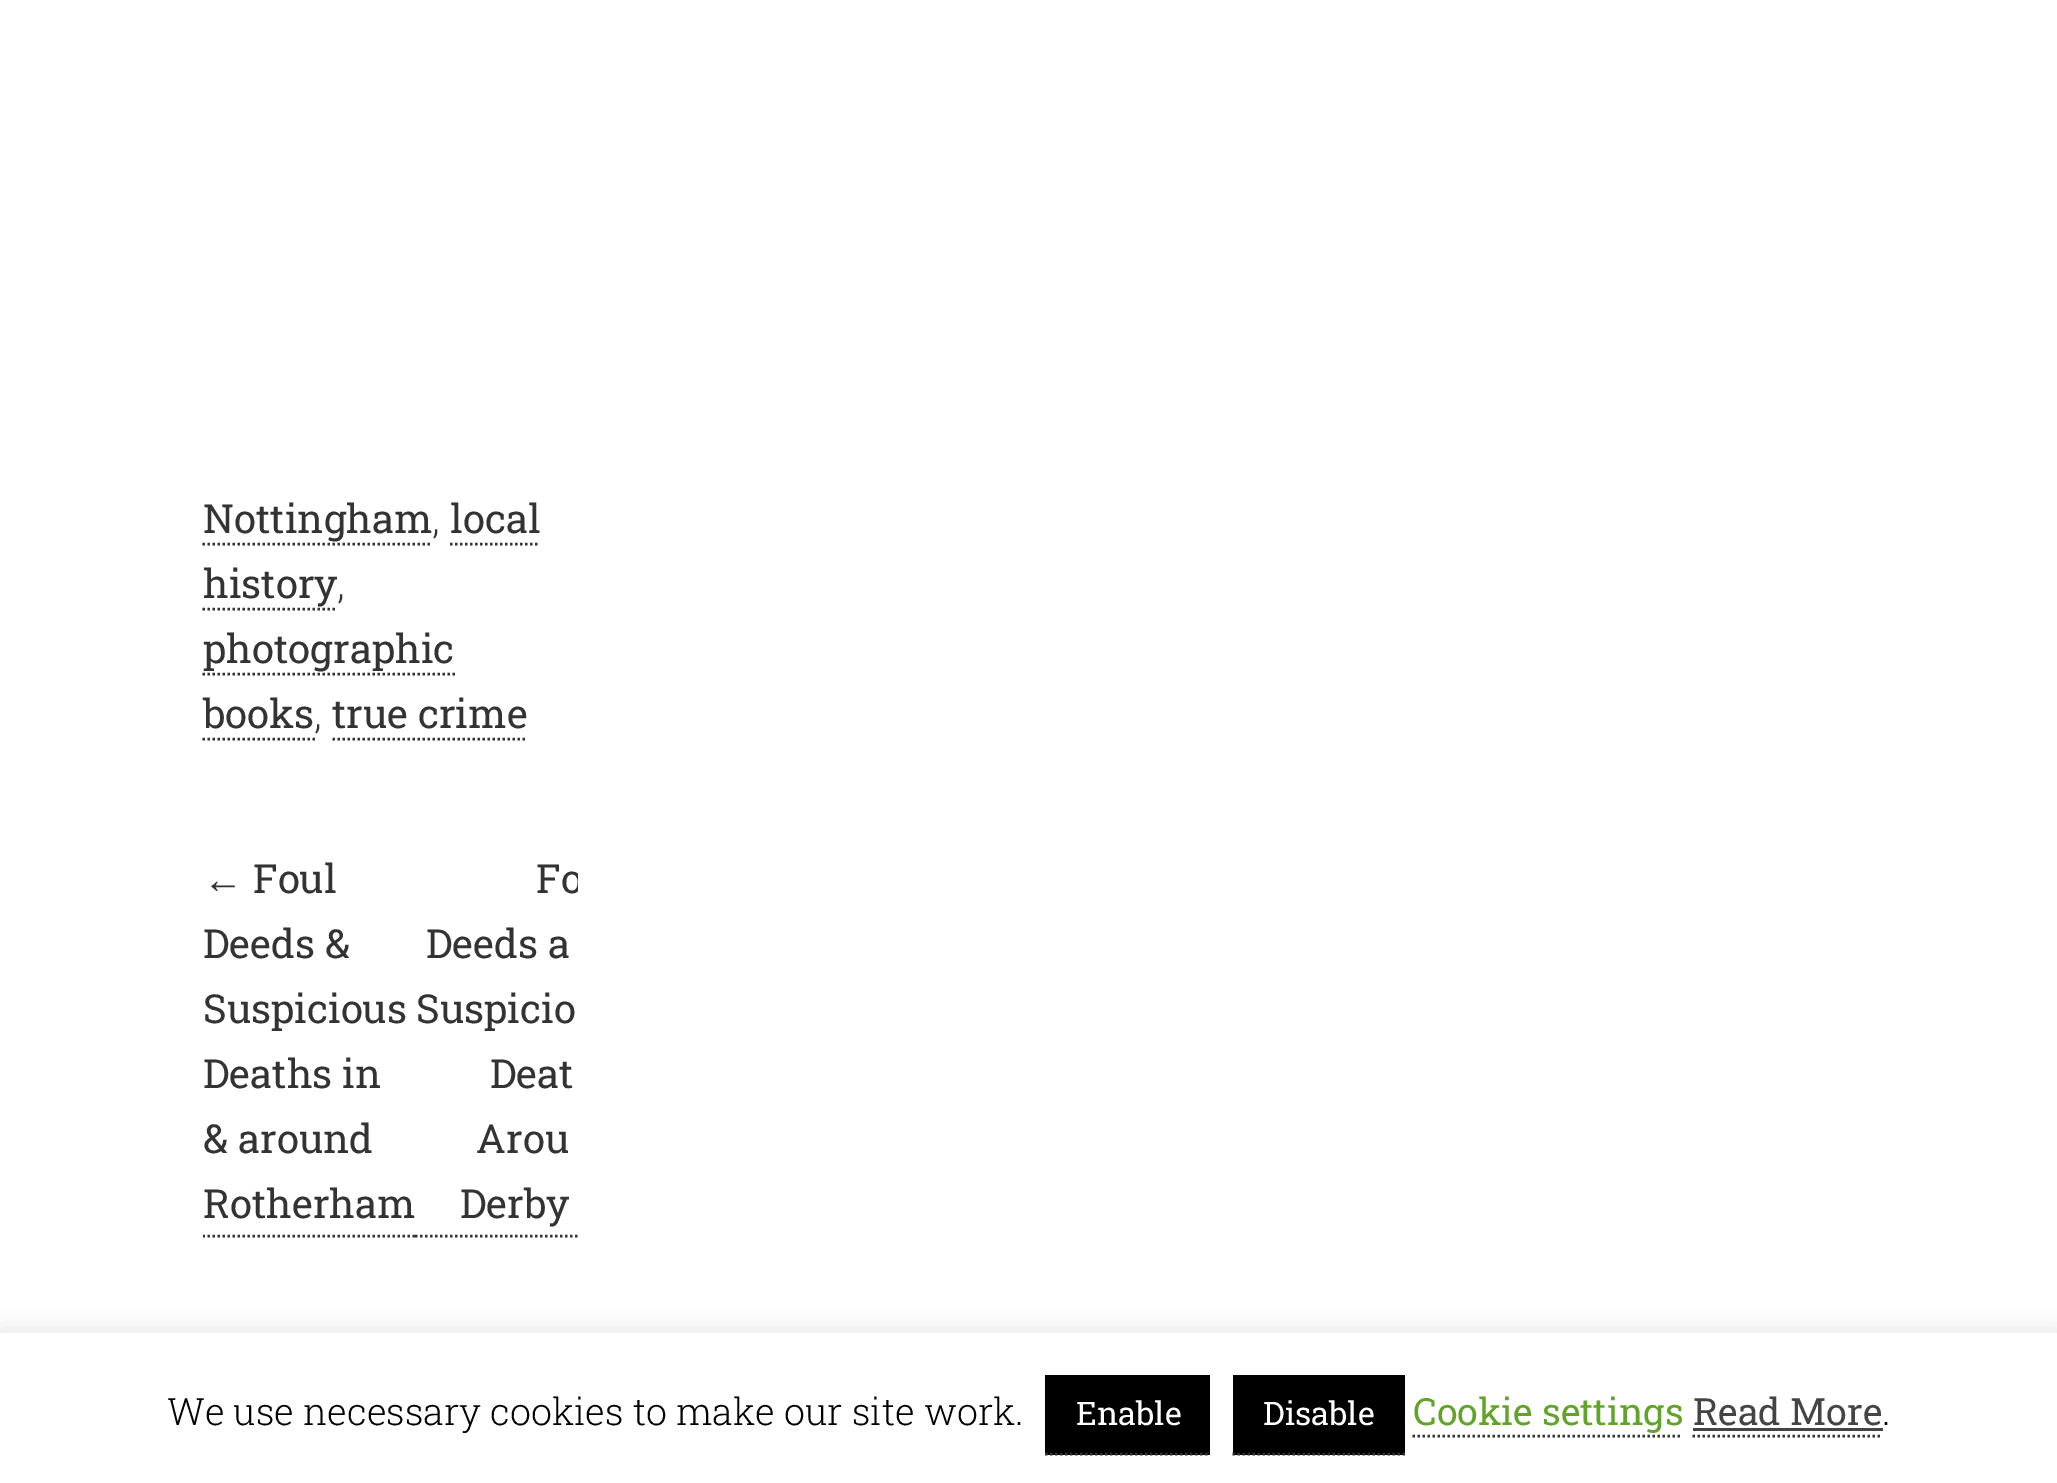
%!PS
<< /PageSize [2057 1483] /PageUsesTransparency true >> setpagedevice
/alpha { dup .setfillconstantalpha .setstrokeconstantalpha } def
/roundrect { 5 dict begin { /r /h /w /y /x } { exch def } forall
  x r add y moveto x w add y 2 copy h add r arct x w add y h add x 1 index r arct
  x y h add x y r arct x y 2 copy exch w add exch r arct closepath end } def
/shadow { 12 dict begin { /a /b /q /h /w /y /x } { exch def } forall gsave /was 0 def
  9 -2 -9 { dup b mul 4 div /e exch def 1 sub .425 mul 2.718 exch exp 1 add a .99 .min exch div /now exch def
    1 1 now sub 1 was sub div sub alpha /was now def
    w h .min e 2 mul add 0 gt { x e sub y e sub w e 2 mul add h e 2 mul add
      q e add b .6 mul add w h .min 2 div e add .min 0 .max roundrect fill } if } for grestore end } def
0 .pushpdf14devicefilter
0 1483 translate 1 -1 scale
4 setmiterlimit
1 setgray
0 0 2057 1483 rectfill
/RobotoSlab-Regular [40 0 0 -40 0 0] selectfont
0.2 setgray
203 533 moveto (Nottingham) show
/RobotoSlab-Light [40 0 0 -40 0 0] selectfont
432 533 moveto (,) show
2.5 setlinewidth
[2.5 2.5] 0 setdash
newpath 202.5 544 moveto 432.5 544 lineto stroke
newpath 450 544 moveto 540 544 lineto stroke
/RobotoSlab-Regular [40 0 0 -40 0 0] selectfont
450 533 moveto (local) show
203 598 moveto (history) show
/RobotoSlab-Light [40 0 0 -40 0 0] selectfont
337 598 moveto (,) show
newpath 202.5 609 moveto 337.5 609 lineto stroke
/RobotoSlab-Regular [40 0 0 -40 0 0] selectfont
203 663 moveto (photographic) show
newpath 202.5 674 moveto 455 674 lineto stroke
203 728 moveto (books) show
/RobotoSlab-Light [40 0 0 -40 0 0] selectfont
314 728 moveto (,) show
newpath 202.5 739 moveto 315 739 lineto stroke
newpath 332.5 739 moveto 527.5 739 lineto stroke
/RobotoSlab-Regular [40 0 0 -40 0 0] selectfont
332 728 moveto (true crime) show
gsave
203 845 375 393 rectclip
newpath 202.5 1236 moveto 415 1236 lineto stroke
grestore
/LiberationSerif-Regular [40 0 0 -40 0 0] selectfont
203 893 moveto (←) show
/RobotoSlab-Regular [40 0 0 -40 0 0] selectfont
253 893 moveto (Foul) show
203 958 moveto (Deeds &) show
203 1023 moveto (Suspicious) show
203 1088 moveto (Deaths in) show
203 1153 moveto (& around) show
203 1218 moveto (Rotherham) show
gsave
203 845 375 393 rectclip
newpath 415 1236 moveto 620 1236 lineto stroke
536 893 moveto (Fo) show
grestore
426 958 moveto (Deeds a) show
416 1023 moveto (Suspicio) show
490 1088 moveto (Deat) show
476 1153 moveto (Arou) show
460 1218 moveto (Derby) show
0.675 0.671 0.671 setrgbcolor
0 1330 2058 153 0 12.5 0.3 shadow
1 setgray
0 1333 2057 150 rectfill
/RobotoSlab-Light [37.5 0 0 -37.5 0 0] selectfont
0 setgray
167 1425 moveto (We use necessary cookies to make our site work.) show
1045 1375 165 80 rectfill
0.2 setgray
newpath 1045 1454 moveto 1210 1454 lineto stroke
/RobotoSlab-Regular [32.5 0 0 -32.5 0 0] selectfont
1 setgray
1076 1425 moveto (Enable) show
0 setgray
1233 1375 172 80 rectfill
0.2 setgray
newpath 1232.5 1454 moveto 1405 1454 lineto stroke
1 setgray
1263 1425 moveto (Disable) show
/RobotoSlab-Regular [37.5 0 0 -37.5 0 0] selectfont
0.384 0.639 0.161 setrgbcolor
1413 1425 moveto (Cookie settings) show
0.2 setgray
newpath 1412.5 1436 moveto 1682.5 1436 lineto stroke
0.267 setgray
1693 1425 moveto (Read More) show
0.2 setgray
newpath 1692.5 1436 moveto 1882.5 1436 lineto stroke
0.267 setgray
1693 1428 190 3 rectfill
/RobotoSlab-Light [37.5 0 0 -37.5 0 0] selectfont
0 setgray
1882 1425 moveto (.) show
.poppdf14devicefilter showpage
